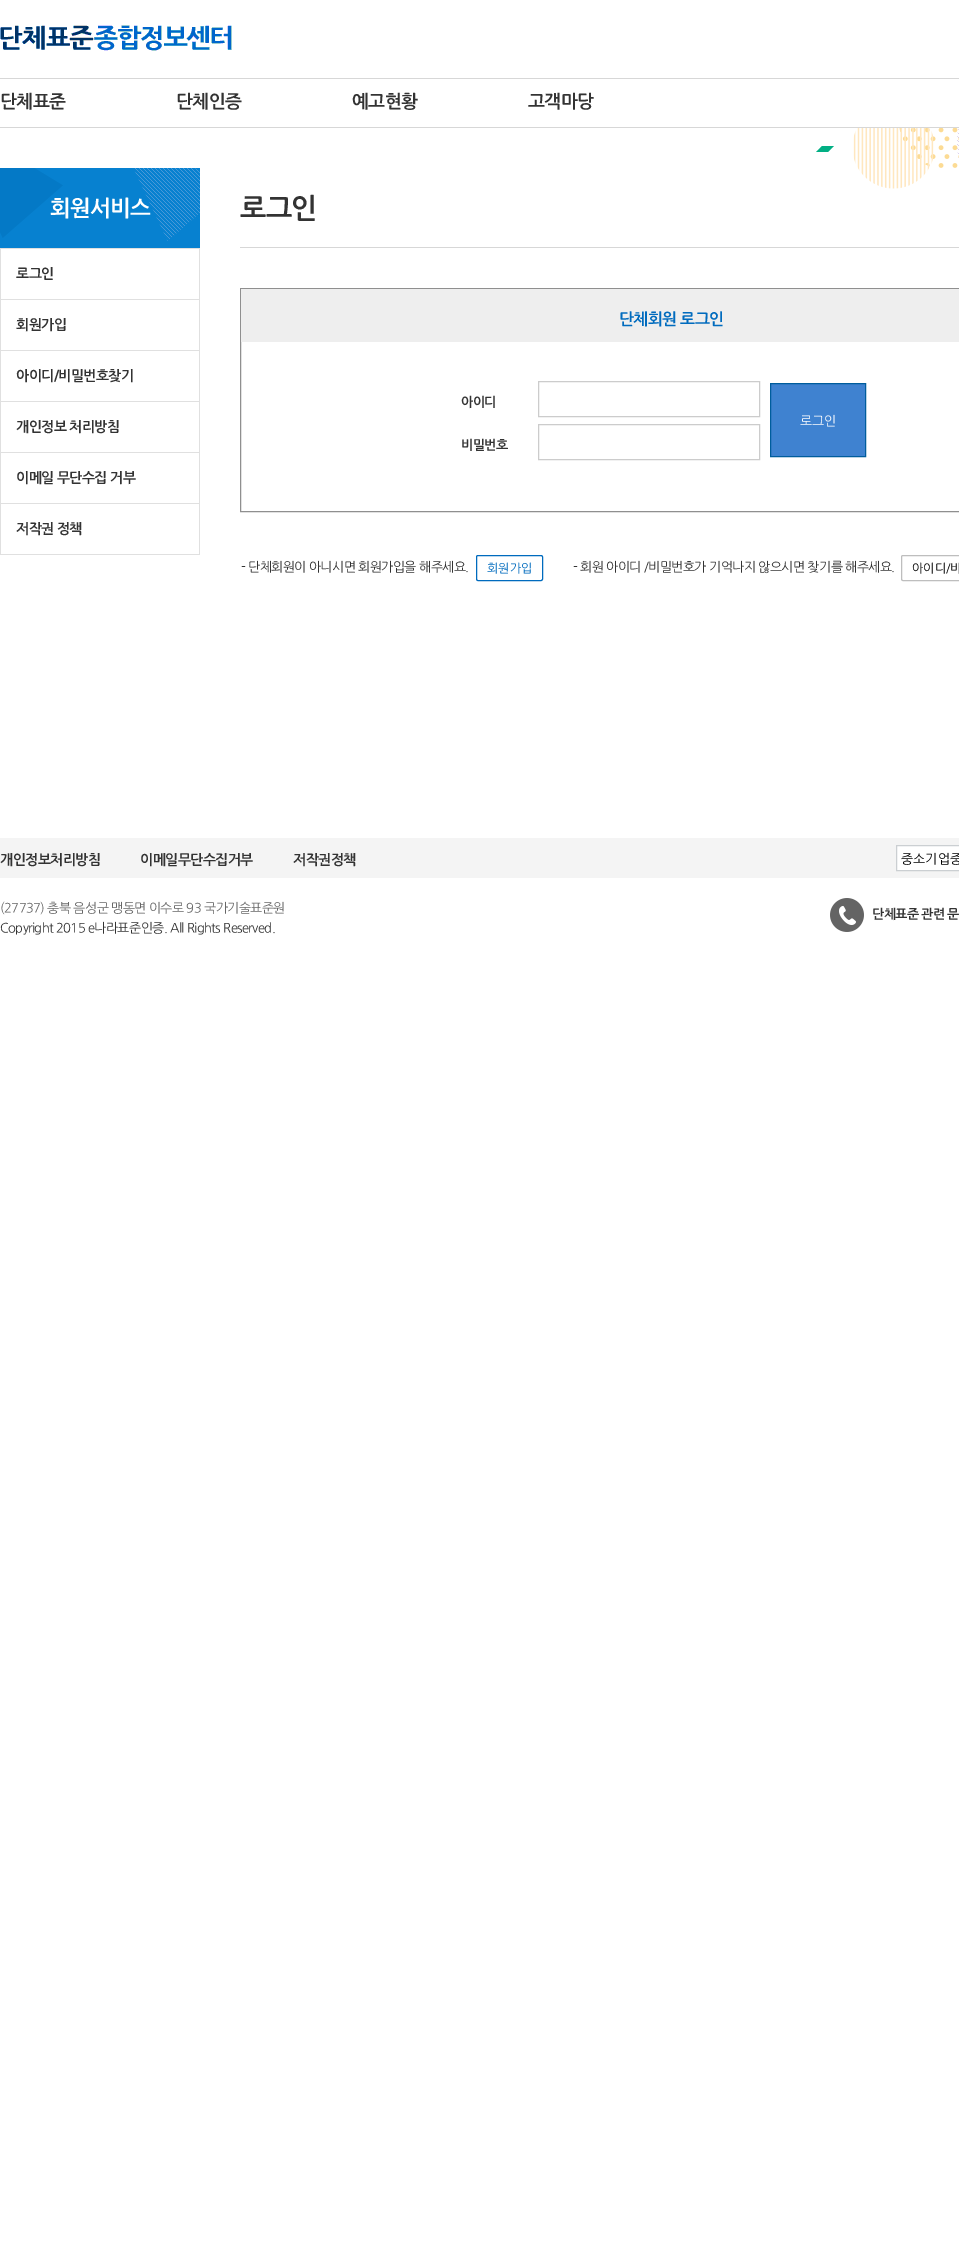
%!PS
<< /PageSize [959 2264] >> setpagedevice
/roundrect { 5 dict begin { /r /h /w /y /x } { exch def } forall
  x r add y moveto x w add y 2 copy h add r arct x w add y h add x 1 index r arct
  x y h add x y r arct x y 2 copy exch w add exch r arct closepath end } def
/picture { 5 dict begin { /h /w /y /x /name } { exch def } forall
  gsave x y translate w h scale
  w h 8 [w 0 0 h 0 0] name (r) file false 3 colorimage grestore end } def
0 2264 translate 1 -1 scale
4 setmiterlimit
1 setgray
0 0 959 2264 rectfill
(img1.rgb) 0 25 232 26 picture
0.843 setgray
0 78 959 1 rectfill
0 127 959 1 rectfill
/NanumGothic-Bold [18 0 0 -18 0 0] selectfont
0.2 setgray
0 107 moveto -0.65 0 (단체표준) ashow
176 107 moveto -0.65 0 (단체인증) ashow
352 107 moveto -0.65 0 (예고현황) ashow
528 107 moveto -0.65 0 (고객마당) ashow
0.027 0.506 0.816 setrgbcolor
0 241 200 7 rectfill
(img2.rgb) 0 168 200 73 picture
/NanumGothic-Bold [22 0 0 -22 0 0] selectfont
1 setgray
50 215 moveto -0.65 0 (회원서비스) ashow
0.878 setgray
0 248 200 1 rectfill
199 248 1 307 rectfill
0 248 1 307 rectfill
1 299 198 1 rectfill
/NanumGothic-Bold [14 0 0 -14 0 0] selectfont
0.2 setgray
16 278 moveto -0.65 0 (로그인) ashow
0.878 setgray
1 350 198 1 rectfill
0.2 setgray
16 329 moveto -0.65 0 (회원가입) ashow
0.878 setgray
1 401 198 1 rectfill
0.2 setgray
16 380 moveto -0.65 0 (아이디/비밀번호찾기) ashow
0.878 setgray
1 452 198 1 rectfill
0.2 setgray
16 431 moveto -0.65 0 (개인정보 처리방침) ashow
0.878 setgray
1 503 198 1 rectfill
0.2 setgray
16 482 moveto -0.65 0 (이메일 무단수집 거부) ashow
0.878 setgray
1 554 198 1 rectfill
0.2 setgray
16 533 moveto -0.65 0 (저작권 정책) ashow
(img3.rgb) 816 128 143 61 picture
0.843 setgray
240 247 719 1 rectfill
/NanumGothic-Bold [28 0 0 -28 0 0] selectfont
0.2 setgray
240 217 moveto -0.65 0 (로그인) ashow
0.561 setgray
240.5 288.5 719 223 rectstroke
0.933 setgray
241 289 718 53 rectfill
/NanumGothic-Bold [16 0 0 -16 0 0] selectfont
0 0.42 0.745 setrgbcolor
619 324 moveto -0.65 0 (단체회원 로그인) ashow
/NanumGothic-Bold [13 0 0 -13 0 0] selectfont
0.2 setgray
461 406 moveto -0.65 0 (아이디) ashow
0.8 setgray
538.5 381.5 221 35 rectstroke
0.247 0.51 0.816 setrgbcolor
newpath 770.5 383.5 moveto 865.5 383.5 lineto 865.5 456.5 lineto 770.5 456.5 lineto closepath gsave fill grestore
0 0.365 0.616 setrgbcolor
stroke
/NanumGothic-Regular [13 0 0 -13 0 0] selectfont
1 setgray
800 425 moveto (로그인) show
/NanumGothic-Bold [13 0 0 -13 0 0] selectfont
0.2 setgray
461 449 moveto -0.65 0 (비밀번호) ashow
0.8 setgray
538.5 424.5 221 35 rectstroke
/NanumGothic-Regular [13 0 0 -13 0 0] selectfont
0.2 setgray
241 571 moveto -0.65 0 (- 단체회원이 아니시면 회원가입을 해주세요.) ashow
0 0.42 0.745 setrgbcolor
476.5 555.5 66 25 1.5 roundrect stroke
/NanumGothic-Regular [12 0 0 -12 0 0] selectfont
487 572 moveto (회원가입) show
/NanumGothic-Regular [13 0 0 -13 0 0] selectfont
0.2 setgray
573 571 moveto -0.65 0 (- 회원 아이디 /비밀번호가 기억나지 않으시면 찾기를 해주세요.) ashow
0.745 setgray
901.5 555.5 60 25 1.5 roundrect stroke
/NanumGothic-Regular [12 0 0 -12 0 0] selectfont
0 setgray
912 572 moveto (아이디/비) show
0.957 setgray
0 838 959 40 rectfill
/NanumGothic-Bold [14 0 0 -14 0 0] selectfont
0.2 setgray
0 864 moveto -0.65 0 (개인정보처리방침) ashow
140 864 moveto -0.65 0 (이메일무단수집거부) ashow
293 864 moveto -0.65 0 (저작권정책) ashow
1 setgray
newpath 896.5 845.5 moveto 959.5 845.5 lineto 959.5 870.5 lineto 896.5 870.5 lineto closepath gsave fill grestore
0.796 0.812 0.824 setrgbcolor
stroke
/NanumGothic-Regular [13 0 0 -13 0 0] selectfont
0 setgray
901 863 moveto (중소기업중) show
0.4 setgray
0 912 moveto -0.65 0 (\(27737\) 충북 음성군 맹동면 이수로 93 국가기술표준원) ashow
0.2 setgray
0 932 moveto -0.65 0 (Copyright 2015 e나라표준인증. All Rights Reserved.) ashow
(img4.rgb) 830 898 34 34 picture
/NanumGothic-Bold [13 0 0 -13 0 0] selectfont
872 918 moveto -0.65 0 (단체표준 관련 문) ashow
showpage
